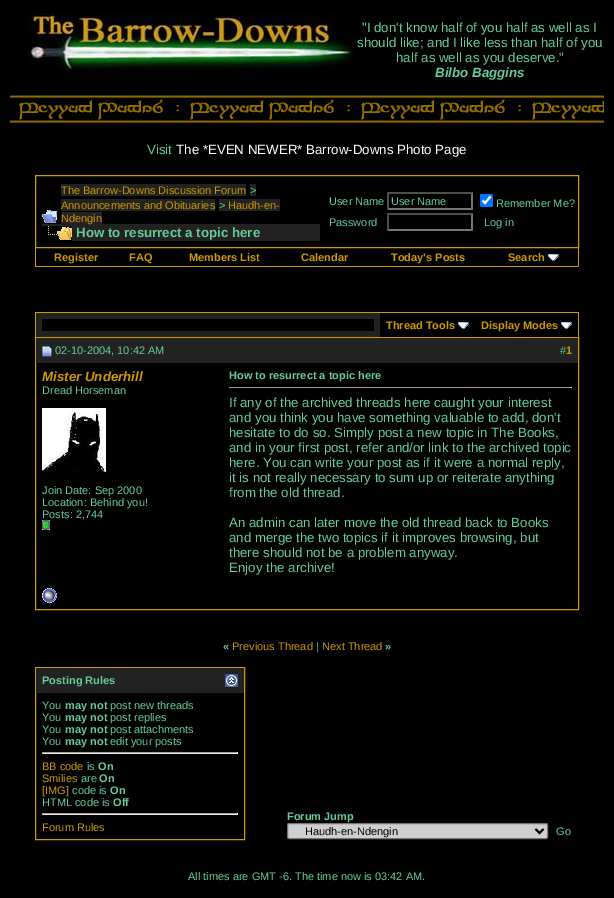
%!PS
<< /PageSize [614 898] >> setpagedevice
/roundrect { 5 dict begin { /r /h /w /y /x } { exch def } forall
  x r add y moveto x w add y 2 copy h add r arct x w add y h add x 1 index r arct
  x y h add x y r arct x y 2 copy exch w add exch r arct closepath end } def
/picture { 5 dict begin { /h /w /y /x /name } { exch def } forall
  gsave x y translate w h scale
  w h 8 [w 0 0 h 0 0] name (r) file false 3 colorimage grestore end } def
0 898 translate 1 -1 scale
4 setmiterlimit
0 setgray
0 0 614 898 rectfill
(img1.rgb) 26 9 328 64 picture
/LiberationSans-Regular [13.3 0 0 -13.3 0 0] selectfont
0.4 0.8 0.6 setrgbcolor
362 32 moveto ("I don't know half of you half as well as I) show
357 47 moveto (should like; and I like less than half of you) show
396 62 moveto (half as well as you deserve.") show
/LiberationSans-BoldItalic [13.3 0 0 -13.3 0 0] selectfont
435 77 moveto (Bilbo Baggins) show
(img2.rgb) 10 95 594 28 picture
/LiberationSans-Regular [13.3 0 0 -13.3 0 0] selectfont
147 154 moveto (Visit) show
1 setgray
176 154 moveto (The *EVEN NEWER* Barrow-Downs Photo Page) show
0.8 0.6 0 setrgbcolor
35.5 175.5 543 72 rectstroke
(img3.rgb) 42 210 15 13 picture
0.133 setgray
61 184 185 12 rectfill
/LiberationSans-Regular [11 0 0 -11 0 0] selectfont
0.8 0.6 0 setrgbcolor
61 194 moveto (The Barrow-Downs Discussion Forum) show
0.133 setgray
250 184 6 12 rectfill
0.4 0.8 0.6 setrgbcolor
250 194 moveto (>) show
0.133 setgray
61 199 154 12 rectfill
0.8 0.6 0 setrgbcolor
61 209 moveto (Announcements and Obituaries) show
0.133 setgray
219 199 61 12 rectfill
0.4 0.8 0.6 setrgbcolor
219 209 moveto (>) show
0.8 0.6 0 setrgbcolor
228 209 moveto (Haudh-en-) show
0.133 setgray
61 212 41 12 rectfill
42 224 278 17 rectfill
0.8 0.6 0 setrgbcolor
61 222 moveto (Ndengin) show
(img4.rgb) 42 226 30 15 picture
/LiberationSans-Bold [13.3 0 0 -13.3 0 0] selectfont
0.4 0.8 0.6 setrgbcolor
76 237 moveto (How to resurrect a topic here) show
/LiberationSans-Regular [11 0 0 -11 0 0] selectfont
329 205 moveto (User Name) show
0.31 setgray
newpath 387 192 moveto 473 192 lineto 471 194 lineto 389 194 lineto closepath fill
0.463 setgray
newpath 473 192 moveto 473 210 lineto 471 208 lineto 471 194 lineto closepath fill
newpath 473 210 moveto 387 210 lineto 389 208 lineto 471 208 lineto closepath fill
0.31 setgray
newpath 387 210 moveto 387 192 lineto 389 194 lineto 389 208 lineto closepath fill
0.4 0.8 0.6 setrgbcolor
391 205 moveto (User Name) show
0 0.459 1 setrgbcolor
480 194 13 13 2 roundrect fill
1 setgray
2.1 setlinewidth
newpath 482.5 200.5 moveto 485 203 lineto 490.5 196.5 lineto stroke
0.4 0.8 0.6 setrgbcolor
496 207 moveto (Remember Me?) show
329 226 moveto (Password) show
0.31 setgray
newpath 387 213 moveto 473 213 lineto 471 215 lineto 389 215 lineto closepath fill
0.463 setgray
newpath 473 213 moveto 473 231 lineto 471 229 lineto 471 215 lineto closepath fill
newpath 473 231 moveto 387 231 lineto 389 229 lineto 471 229 lineto closepath fill
0.31 setgray
newpath 387 231 moveto 387 213 lineto 389 215 lineto 389 229 lineto closepath fill
0.4 0.8 0.6 setrgbcolor
484 226 moveto (Log in) show
0.8 0.6 0 setrgbcolor
578 248 1 19 rectfill
35 266 544 1 rectfill
35 248 1 19 rectfill
/LiberationSans-Bold [11 0 0 -11 0 0] selectfont
54 261 moveto (Register) show
129 261 moveto (FAQ) show
189 261 moveto (Members List) show
301 261 moveto (Calendar) show
391 261 moveto (Today's Posts) show
508 261 moveto (Search) show
(img5.rgb) 548 254 11 7 picture
35 312 544 1 rectfill
578 312 1 25 rectfill
35 312 1 25 rectfill
0.133 setgray
36 313 344 24 rectfill
0 setgray
42 319 332 12 rectfill
0.8 0.6 0 setrgbcolor
386 329 moveto (Thread Tools) show
(img5.rgb) 458 322 11 7 picture
481 329 moveto (Display Modes) show
(img5.rgb) 561 322 11 7 picture
1 setlinewidth
35.5 337.5 543 272 rectstroke
0.133 setgray
36 338 542 25 rectfill
(img6.rgb) 42 346 10 11 picture
/LiberationSans-Regular [11 0 0 -11 0 0] selectfont
0.4 0.8 0.6 setrgbcolor
55 354 moveto (02-10-2004, 10:42 AM) show
560 354 moveto (#) show
/LiberationSans-Bold [11 0 0 -11 0 0] selectfont
0.8 0.6 0 setrgbcolor
566 354 moveto (1) show
/LiberationSans-BoldItalic [13.3 0 0 -13.3 0 0] selectfont
42 381 moveto (Mister Underhill) show
/LiberationSans-Regular [11 0 0 -11 0 0] selectfont
0.4 0.8 0.6 setrgbcolor
42 394 moveto (Dread Horseman) show
(img7.rgb) 42 408 64 64 picture
42 494 moveto (Join Date: Sep 2000) show
42 506 moveto (Location: Behind you!) show
42 518 moveto (Posts: 2,744) show
(img8.rgb) 42 520 8 10 picture
/LiberationSans-Bold [11 0 0 -11 0 0] selectfont
229 379 moveto (How to resurrect a topic here) show
0.624 setgray
229 387 343 1 rectfill
0.933 setgray
571 387 1 1 rectfill
/LiberationSans-Regular [13.3 0 0 -13.3 0 0] selectfont
0.4 0.8 0.6 setrgbcolor
229 407 moveto (If any of the archived threads here caught your interest) show
229 422 moveto (and you think you have something valuable to add, don't) show
229 437 moveto (hesitate to do so. Simply post a new topic in The Books,) show
229 452 moveto (and in your first post, refer and/or link to the archived topic) show
229 467 moveto (here. You can write your post as if it were a normal reply,) show
229 482 moveto (it is not really necessary to sum up or reiterate anything) show
229 497 moveto (from the old thread.) show
229 527 moveto (An admin can later move the old thread back to Books) show
229 542 moveto (and merge the two topics if it improves browsing, but) show
229 557 moveto (there should not be a problem anyway.) show
229 572 moveto (Enjoy the archive!) show
(img9.rgb) 42 588 15 15 picture
/LiberationSans-Bold [11 0 0 -11 0 0] selectfont
223 650 moveto («) show
/LiberationSans-Regular [11 0 0 -11 0 0] selectfont
0.8 0.6 0 setrgbcolor
232 650 moveto (Previous Thread) show
0.4 0.8 0.6 setrgbcolor
316 650 moveto (|) show
0.8 0.6 0 setrgbcolor
322 650 moveto (Next Thread) show
/LiberationSans-Bold [11 0 0 -11 0 0] selectfont
0.4 0.8 0.6 setrgbcolor
385 650 moveto (») show
0.8 0.6 0 setrgbcolor
35.5 667.5 209 172 rectstroke
0.133 setgray
36 668 208 25 rectfill
0.4 0.8 0.6 setrgbcolor
42 684 moveto (Posting Rules) show
(img10.rgb) 225 674 13 13 picture
/LiberationSans-Regular [11 0 0 -11 0 0] selectfont
42 709 moveto (You) show
/LiberationSans-Bold [11 0 0 -11 0 0] selectfont
65 709 moveto (may not) show
/LiberationSans-Regular [11 0 0 -11 0 0] selectfont
110 709 moveto (post new threads) show
42 721 moveto (You) show
/LiberationSans-Bold [11 0 0 -11 0 0] selectfont
65 721 moveto (may not) show
/LiberationSans-Regular [11 0 0 -11 0 0] selectfont
110 721 moveto (post replies) show
42 733 moveto (You) show
/LiberationSans-Bold [11 0 0 -11 0 0] selectfont
65 733 moveto (may not) show
/LiberationSans-Regular [11 0 0 -11 0 0] selectfont
110 733 moveto (post attachments) show
42 745 moveto (You) show
/LiberationSans-Bold [11 0 0 -11 0 0] selectfont
65 745 moveto (may not) show
/LiberationSans-Regular [11 0 0 -11 0 0] selectfont
110 745 moveto (edit your posts) show
0.624 setgray
42 752 196 1 rectfill
0.933 setgray
237 752 1 2 rectfill
42 753 196 1 rectfill
0.624 setgray
42 752 1 2 rectfill
0.8 0.6 0 setrgbcolor
42 770 moveto (BB code) show
0.4 0.8 0.6 setrgbcolor
87 770 moveto (is) show
/LiberationSans-Bold [11 0 0 -11 0 0] selectfont
98 770 moveto (On) show
/LiberationSans-Regular [11 0 0 -11 0 0] selectfont
0.8 0.6 0 setrgbcolor
42 782 moveto (Smilies) show
0.4 0.8 0.6 setrgbcolor
81 782 moveto (are) show
/LiberationSans-Bold [11 0 0 -11 0 0] selectfont
99 782 moveto (On) show
/LiberationSans-Regular [11 0 0 -11 0 0] selectfont
0.8 0.6 0 setrgbcolor
42 794 moveto ([IMG]) show
0.4 0.8 0.6 setrgbcolor
72 794 moveto (code is) show
/LiberationSans-Bold [11 0 0 -11 0 0] selectfont
110 794 moveto (On) show
/LiberationSans-Regular [11 0 0 -11 0 0] selectfont
42 806 moveto (HTML code is) show
/LiberationSans-Bold [11 0 0 -11 0 0] selectfont
113 806 moveto (Off) show
0.624 setgray
42 813 196 1 rectfill
0.933 setgray
237 813 1 2 rectfill
42 814 196 1 rectfill
0.624 setgray
42 813 1 2 rectfill
/LiberationSans-Regular [11 0 0 -11 0 0] selectfont
0.8 0.6 0 setrgbcolor
42 831 moveto (Forum Rules) show
/LiberationSans-Bold [11 0 0 -11 0 0] selectfont
0.4 0.8 0.6 setrgbcolor
287 820 moveto (Forum Jump) show
0.812 setgray
287.5 823.5 260 15 1.5 roundrect gsave fill grestore
0.463 setgray
stroke
0 setgray
2 setlinewidth
newpath 535.5 829 moveto 539.5 833 lineto 543.5 829 lineto stroke
/LiberationSans-Regular [11 0 0 -11 0 0] selectfont
305 835 moveto (Haudh-en-Ndengin) show
0.4 0.8 0.6 setrgbcolor
556 835 moveto (Go) show
188 880 moveto (All times are GMT -6. The time now is 03:42 AM.) show
showpage
